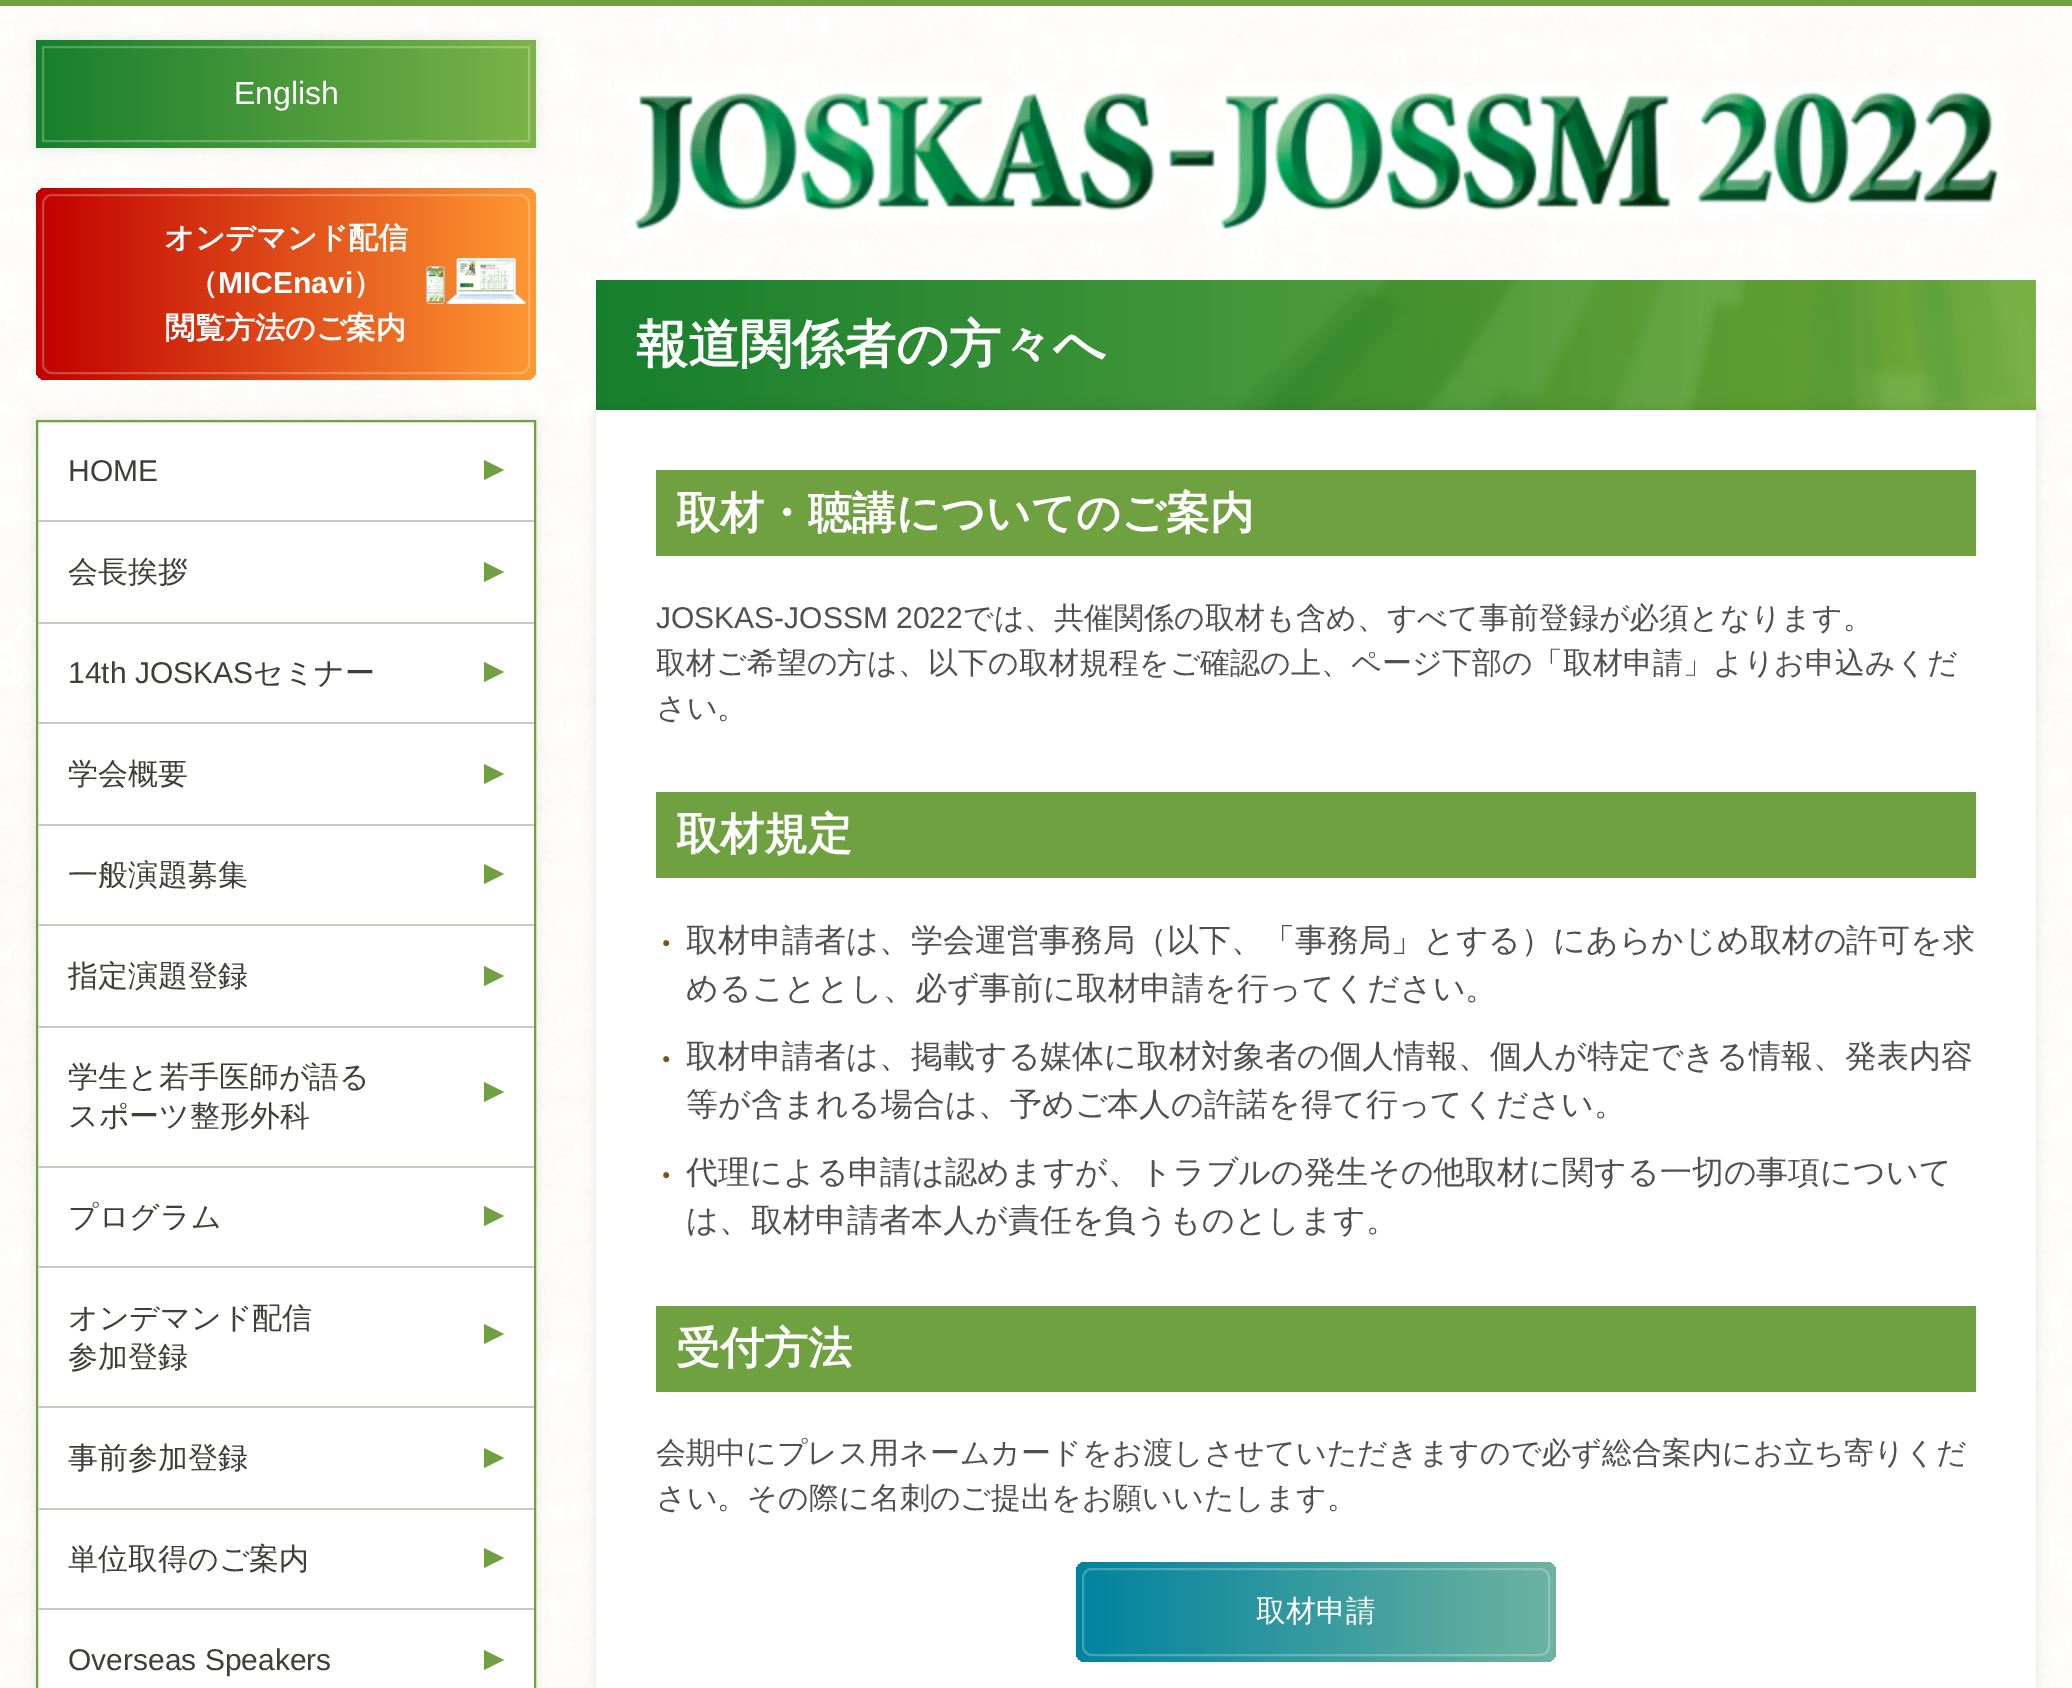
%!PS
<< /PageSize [2072 1688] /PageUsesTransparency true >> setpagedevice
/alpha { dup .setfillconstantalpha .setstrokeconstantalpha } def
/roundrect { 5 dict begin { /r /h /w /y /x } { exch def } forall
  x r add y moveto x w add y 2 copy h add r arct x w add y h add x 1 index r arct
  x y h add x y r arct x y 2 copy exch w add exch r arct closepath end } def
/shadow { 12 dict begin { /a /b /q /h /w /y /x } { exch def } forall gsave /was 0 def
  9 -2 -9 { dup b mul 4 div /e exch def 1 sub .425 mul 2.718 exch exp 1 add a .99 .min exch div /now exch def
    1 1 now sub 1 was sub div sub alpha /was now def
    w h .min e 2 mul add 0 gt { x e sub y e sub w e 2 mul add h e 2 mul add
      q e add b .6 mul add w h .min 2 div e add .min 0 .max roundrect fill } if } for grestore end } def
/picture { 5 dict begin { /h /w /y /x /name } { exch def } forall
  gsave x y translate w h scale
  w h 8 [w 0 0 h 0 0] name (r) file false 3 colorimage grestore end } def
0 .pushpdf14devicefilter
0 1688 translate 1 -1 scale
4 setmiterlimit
1 setgray
0 0 2072 1688 rectfill
(img1.rgb) 0 6 2072 1682 picture
0.439 0.631 0.255 setrgbcolor
0 0 2072 6 rectfill
0.875 0.902 0.851 setrgbcolor
36 40 500 108 0 6 1 shadow
gsave newpath 36 40 moveto 536 40 lineto 536 148 lineto 36 148 lineto closepath clip newpath
<< /ShadingType 2 /ColorSpace /DeviceRGB /Coords [36 94 536 94] /Extend [true true] /Function << /FunctionType 2 /Domain [0 1] /C0 [0.086 0.498 0.176] /C1 [0.49 0.702 0.282] /N 1 >> >> shfill grestore
0.25 alpha
1 setgray
2 setlinewidth
43 47 486 94 rectstroke
/LiberationSans-Regular [32 0 0 -32 0 0] selectfont
1 alpha
234 104 moveto (English) show
gsave 36 188 500 192 10 roundrect clip newpath
<< /ShadingType 2 /ColorSpace /DeviceRGB /Coords [36 284 536 284] /Extend [true true] /Function << /FunctionType 2 /Domain [0 1] /C0 [0.753 0 0] /C1 [1 0.6 0.2] /N 1 >> >> shfill grestore
(img2.rgb) 426 258 100 46 picture
0.25 alpha
43 195 486 178 9 roundrect stroke
/WenQuanYiZenHei-Bold [30 0 0 -30 0 0] selectfont
1 alpha
164 248 moveto (オンデマンド配信) show
188 293 moveto (（) show
/LiberationSans-Bold [30 0 0 -30 0 0] selectfont
218 293 moveto (MICEnavi) show
/WenQuanYiZenHei-Bold [30 0 0 -30 0 0] selectfont
353 293 moveto (）) show
165 338 moveto (閲覧方法のご案内) show
0 setgray
36 420 500 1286 0 6 0.1 shadow
1 setgray
newpath 37 421 moveto 535 421 lineto 535 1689 lineto 37 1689 lineto closepath gsave fill grestore
0.439 0.631 0.255 setrgbcolor
stroke
0.776 0.8 0.753 setrgbcolor
38 520 496 2 rectfill
/LiberationSans-Regular [30 0 0 -30 0 0] selectfont
0.239 0.251 0.224 setrgbcolor
68 481 moveto (HOME) show
0.439 0.631 0.255 setrgbcolor
newpath 484 480 moveto 484 460 lineto 504 470 lineto closepath fill
0.776 0.8 0.753 setrgbcolor
38 622 496 2 rectfill
/WenQuanYiZenHei-Medium [30 0 0 -30 0 0] selectfont
0.239 0.251 0.224 setrgbcolor
68 582 moveto (会長挨拶) show
0.439 0.631 0.255 setrgbcolor
newpath 484 582 moveto 484 562 lineto 504 572 lineto closepath fill
0.776 0.8 0.753 setrgbcolor
38 722 496 2 rectfill
/LiberationSans-Regular [30 0 0 -30 0 0] selectfont
0.239 0.251 0.224 setrgbcolor
68 683 moveto (14th JOSKAS) show
/WenQuanYiZenHei-Medium [30 0 0 -30 0 0] selectfont
253 683 moveto (セミナー) show
0.439 0.631 0.255 setrgbcolor
newpath 484 682 moveto 484 662 lineto 504 672 lineto closepath fill
0.776 0.8 0.753 setrgbcolor
38 824 496 2 rectfill
0.239 0.251 0.224 setrgbcolor
68 784 moveto (学会概要) show
0.439 0.631 0.255 setrgbcolor
newpath 484 784 moveto 484 764 lineto 504 774 lineto closepath fill
0.776 0.8 0.753 setrgbcolor
38 924 496 2 rectfill
0.239 0.251 0.224 setrgbcolor
68 885 moveto (一般演題募集) show
0.439 0.631 0.255 setrgbcolor
newpath 484 884 moveto 484 864 lineto 504 874 lineto closepath fill
0.776 0.8 0.753 setrgbcolor
38 1026 496 2 rectfill
0.239 0.251 0.224 setrgbcolor
68 986 moveto (指定演題登録) show
0.439 0.631 0.255 setrgbcolor
newpath 484 986 moveto 484 966 lineto 504 976 lineto closepath fill
0.776 0.8 0.753 setrgbcolor
38 1166 496 2 rectfill
0.239 0.251 0.224 setrgbcolor
68 1087 moveto (学生と若手医師が語る) show
0.439 0.631 0.255 setrgbcolor
newpath 484 1102 moveto 484 1082 lineto 504 1092 lineto closepath fill
0.239 0.251 0.224 setrgbcolor
68 1126 moveto (スポーツ整形外科) show
0.776 0.8 0.753 setrgbcolor
38 1266 496 2 rectfill
0.239 0.251 0.224 setrgbcolor
68 1227 moveto (プログラム) show
0.439 0.631 0.255 setrgbcolor
newpath 484 1226 moveto 484 1206 lineto 504 1216 lineto closepath fill
0.776 0.8 0.753 setrgbcolor
38 1406 496 2 rectfill
0.239 0.251 0.224 setrgbcolor
68 1328 moveto (オンデマンド配信) show
0.439 0.631 0.255 setrgbcolor
newpath 484 1344 moveto 484 1324 lineto 504 1334 lineto closepath fill
0.239 0.251 0.224 setrgbcolor
68 1367 moveto (参加登録) show
0.776 0.8 0.753 setrgbcolor
38 1508 496 2 rectfill
0.239 0.251 0.224 setrgbcolor
68 1468 moveto (事前参加登録) show
0.439 0.631 0.255 setrgbcolor
newpath 484 1468 moveto 484 1448 lineto 504 1458 lineto closepath fill
0.776 0.8 0.753 setrgbcolor
38 1608 496 2 rectfill
0.239 0.251 0.224 setrgbcolor
68 1569 moveto (単位取得のご案内) show
0.439 0.631 0.255 setrgbcolor
newpath 484 1568 moveto 484 1548 lineto 504 1558 lineto closepath fill
/LiberationSans-Regular [30 0 0 -30 0 0] selectfont
0.239 0.251 0.224 setrgbcolor
68 1670 moveto (Overseas Speakers) show
0.439 0.631 0.255 setrgbcolor
newpath 484 1670 moveto 484 1650 lineto 504 1660 lineto closepath fill
(img3.rgb) 627 82 1378 156 picture
(img4.rgb) 596 280 1440 130 picture
/WenQuanYiZenHei-Bold [52 0 0 -52 0 0] selectfont
1 setgray
636 362 moveto (報道関係者の方々へ) show
0 setgray
596 410 1440 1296 0 6 0.1 shadow
1 setgray
596 410 1440 1278 rectfill
0.439 0.631 0.255 setrgbcolor
656 470 1320 86 rectfill
/WenQuanYiZenHei-Bold [44 0 0 -44 0 0] selectfont
1 setgray
676 528 moveto (取材・聴講についてのご案内) show
/LiberationSans-Regular [30 0 0 -30 0 0] selectfont
0.314 setgray
656 628 moveto (JOSKAS-JOSSM 2022) show
/WenQuanYiZenHei-Medium [30 0 0 -30 0 0] selectfont
963 628 moveto (では、共催関係の取材も含め、すべて事前登録が必須となります。) show
656 673 moveto (取材ご希望の方は、以下の取材規程をご確認の上、ページ下部の「取材申請」よりお申込みくだ) show
656 718 moveto (さい。) show
0.439 0.631 0.255 setrgbcolor
656 792 1320 86 rectfill
/WenQuanYiZenHei-Bold [44 0 0 -44 0 0] selectfont
1 setgray
676 849 moveto (取材規定) show
/LiberationSans-Regular [14 0 0 -14 0 0] selectfont
0.502 0.318 0.098 setrgbcolor
662 947 moveto (●) show
/WenQuanYiZenHei-Medium [32 0 0 -32 0 0] selectfont
0.314 setgray
686 951 moveto (取材申請者は、学会運営事務局（以下、「事務局」とする）にあらかじめ取材の許可を求) show
686 999 moveto (めることとし、必ず事前に取材申請を行ってください。) show
/LiberationSans-Regular [14 0 0 -14 0 0] selectfont
0.502 0.318 0.098 setrgbcolor
662 1063 moveto (●) show
/WenQuanYiZenHei-Medium [32 0 0 -32 0 0] selectfont
0.314 setgray
686 1067 moveto (取材申請者は、掲載する媒体に取材対象者の個人情報、個人が特定できる情報、発表内容) show
686 1115 moveto (等が含まれる場合は、予めご本人の許諾を得て行ってください。) show
/LiberationSans-Regular [14 0 0 -14 0 0] selectfont
0.502 0.318 0.098 setrgbcolor
662 1179 moveto (●) show
/WenQuanYiZenHei-Medium [32 0 0 -32 0 0] selectfont
0.314 setgray
686 1183 moveto (代理による申請は認めますが、トラブルの発生その他取材に関する一切の事項について) show
686 1231 moveto (は、取材申請者本人が責任を負うものとします。) show
0.439 0.631 0.255 setrgbcolor
656 1306 1320 86 rectfill
/WenQuanYiZenHei-Bold [44 0 0 -44 0 0] selectfont
1 setgray
676 1363 moveto (受付方法) show
/WenQuanYiZenHei-Medium [30 0 0 -30 0 0] selectfont
0.314 setgray
656 1463 moveto (会期中にプレス用ネームカードをお渡しさせていただきますので必ず総合案内にお立ち寄りくだ) show
656 1508 moveto (さい。その際に名刺のご提出をお願いいたします。) show
gsave 1076 1562 480 100 10 roundrect clip newpath
<< /ShadingType 2 /ColorSpace /DeviceRGB /Coords [1076 1612 1556 1612] /Extend [true true] /Function << /FunctionType 2 /Domain [0 1] /C0 [0 0.514 0.624] /C1 [0.427 0.702 0.627] /N 1 >> >> shfill grestore
0.25 alpha
1 setgray
1083 1569 466 86 9 roundrect stroke
1 alpha
1256 1621 moveto (取材申請) show
.poppdf14devicefilter showpage
